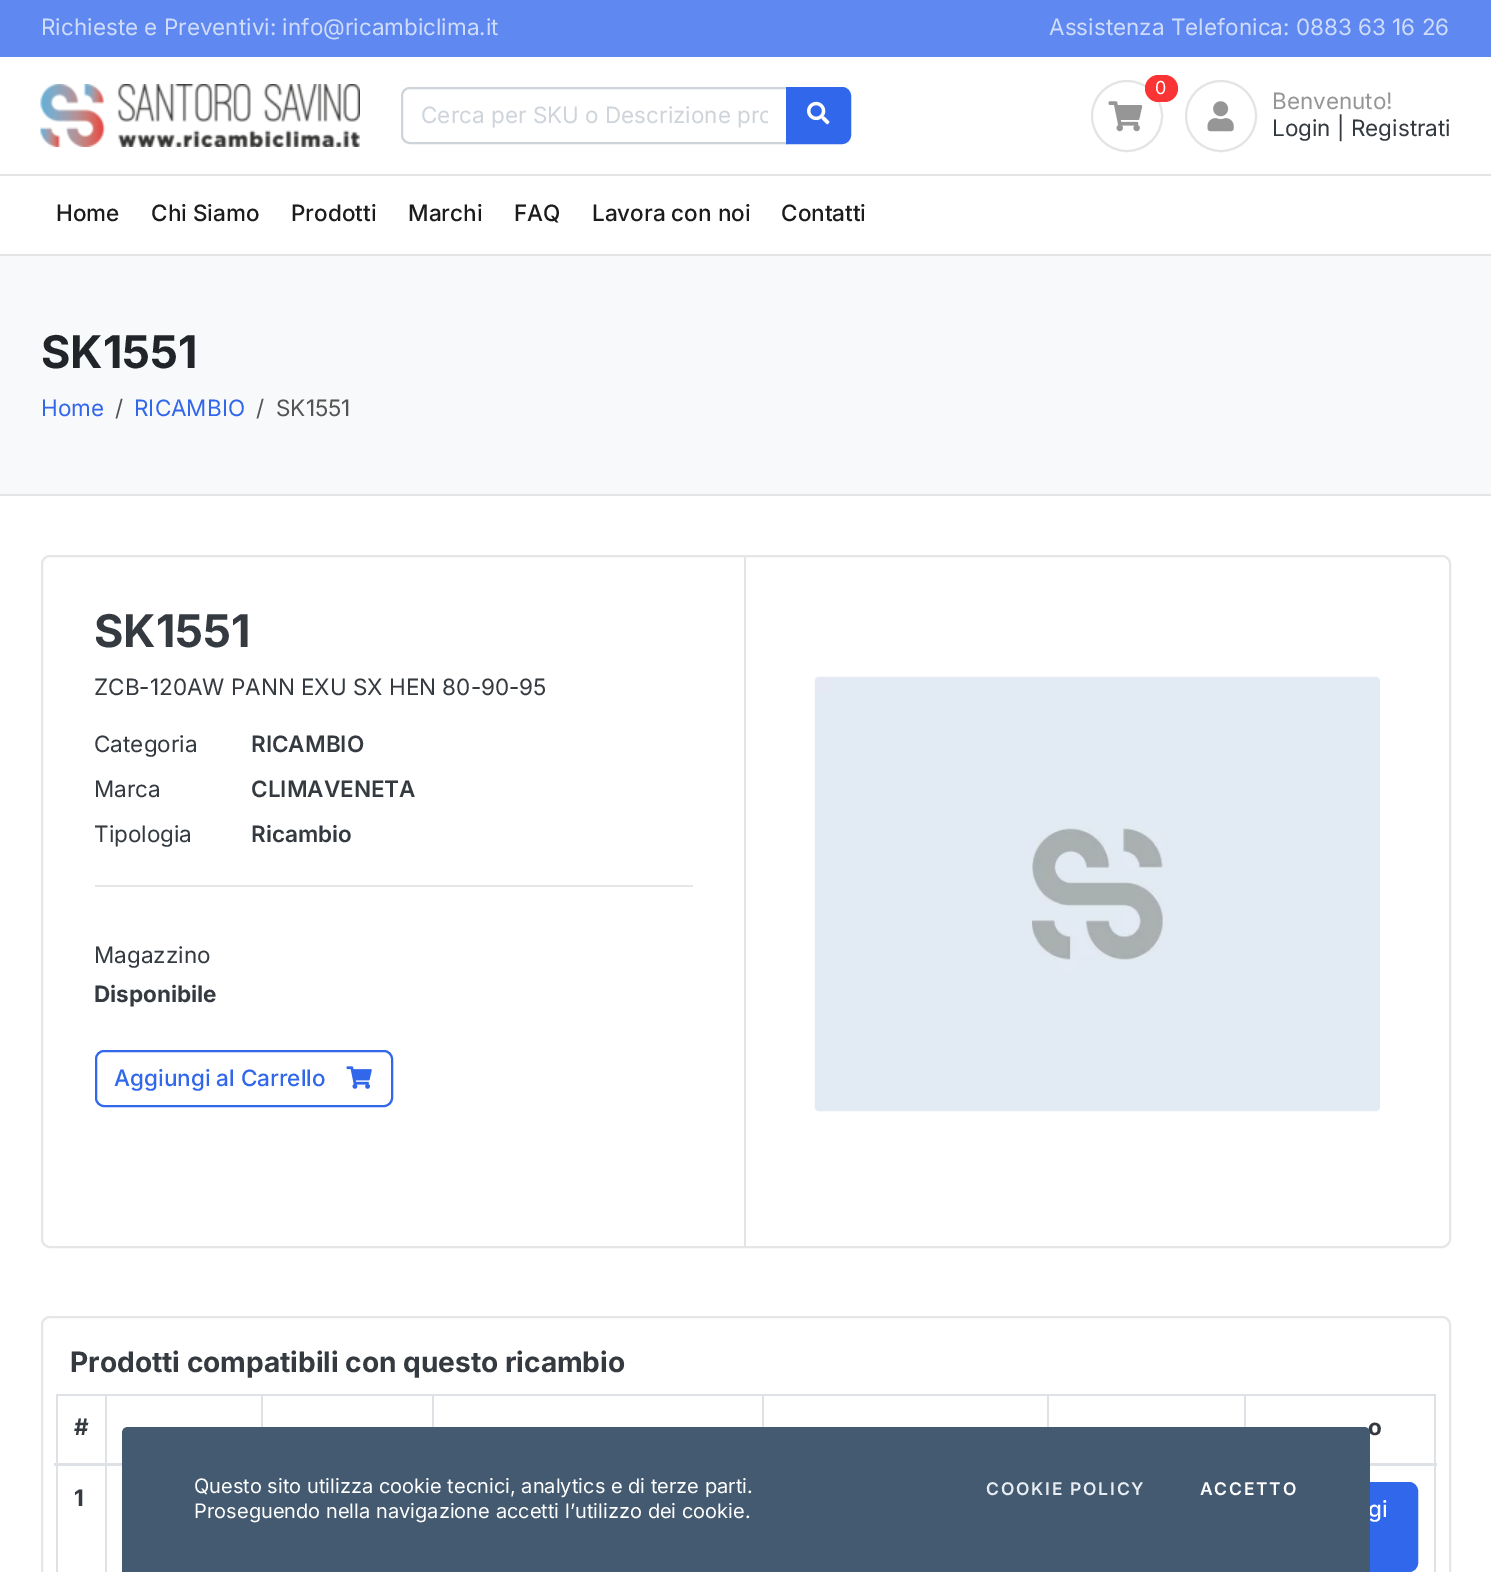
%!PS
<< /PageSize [1491 1572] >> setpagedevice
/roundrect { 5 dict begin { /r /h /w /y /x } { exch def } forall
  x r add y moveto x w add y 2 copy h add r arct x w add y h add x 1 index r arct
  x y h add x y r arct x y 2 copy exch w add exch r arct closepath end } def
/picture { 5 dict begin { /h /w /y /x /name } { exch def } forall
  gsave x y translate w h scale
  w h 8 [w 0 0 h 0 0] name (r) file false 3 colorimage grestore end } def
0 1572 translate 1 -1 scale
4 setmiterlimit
1 setgray
0 0 1491 1572 rectfill
0.373 0.537 0.941 setrgbcolor
0 0 1491 57 rectfill
/Inter-Regular [22.5 0 0 -22.5 0 0] selectfont
0.812 0.863 0.984 setrgbcolor
41 35 moveto (Richieste e Preventivi: info@ricambiclima.it) show
1049 35 moveto (Assistenza Telefonica: 0883 63 16 26) show
0.894 setgray
0 174 1491 2 rectfill
(img1.rgb) 40 84 320 63 picture
0.808 0.831 0.855 setrgbcolor
2 setlinewidth
newpath 410 88 moveto 787 88 lineto 787 143 lineto 410 143 lineto 405.5 143 402 139.5 402 135 curveto 402 96 lineto 402 91.5 405.5 88 410 88 curveto closepath stroke
gsave
422 101 346 28 rectclip
421 123 moveto (Cerca per SKU o Descrizione pro) show
grestore
0.192 0.404 0.922 setrgbcolor
newpath 787 88 moveto 842 88 lineto 846.5 88 850 91.5 850 96 curveto 850 135 lineto 850 139.5 846.5 143 842 143 curveto 787 143 lineto closepath gsave fill grestore
stroke
(img2.rgb) 807 101 23 24 picture
0.894 setgray
newpath 1127 116 35 0 360 arc closepath stroke
(img3.rgb) 1108 101 35 31 picture
0.98 0.204 0.204 setrgbcolor
1145 75 33 27 13.5 roundrect fill
/Inter-Regular [18 0 0 -18 0 0] selectfont
1 setgray
1155 94 moveto (0) show
0.894 setgray
newpath 1221 116 35 0 360 arc closepath stroke
(img4.rgb) 1207 101 27 31 picture
/Inter-Regular [22.5 0 0 -22.5 0 0] selectfont
0.588 setgray
1272 109 moveto (Benvenuto!) show
0.204 0.227 0.251 setrgbcolor
1272 136 moveto (Login | Registrati) show
0.894 setgray
0 254 1491 2 rectfill
/Inter-Medium [22.5 0 0 -22.5 0 0] selectfont
0.11 setgray
56 221 moveto (Home) show
151 221 moveto (Chi Siamo) show
291 221 moveto (Prodotti) show
408 221 moveto (Marchi) show
514 221 moveto (FAQ) show
592 221 moveto (Lavora con noi) show
781 221 moveto (Contatti) show
0.973 0.976 0.98 setrgbcolor
0 256 1491 238 rectfill
0.894 setgray
0 494 1491 2 rectfill
/Inter-Bold [45 0 0 -45 0 0] selectfont
0.129 0.145 0.161 setrgbcolor
41 368 moveto (SK1551) show
/Inter-Regular [22.5 0 0 -22.5 0 0] selectfont
0.192 0.404 0.922 setrgbcolor
41 416 moveto (Home) show
0.329 setgray
115 416 moveto (/) show
0.192 0.404 0.922 setrgbcolor
134 416 moveto (RICAMBIO) show
0.329 setgray
256 416 moveto (/) show
276 416 moveto (SK1551) show
0.902 setgray
42 556 1408 691 8 roundrect stroke
0.894 setgray
744 557 2 690 rectfill
/Inter-Bold [45 0 0 -45 0 0] selectfont
0.204 0.227 0.251 setrgbcolor
94 647 moveto (SK1551) show
/Inter-Regular [22.5 0 0 -22.5 0 0] selectfont
94 695 moveto (ZCB-120AW PANN EXU SX HEN 80-90-95) show
94 752 moveto (Categoria) show
/Inter-SemiBold [22.5 0 0 -22.5 0 0] selectfont
251 752 moveto (RICAMBIO) show
/Inter-Regular [22.5 0 0 -22.5 0 0] selectfont
94 797 moveto (Marca) show
/Inter-SemiBold [22.5 0 0 -22.5 0 0] selectfont
251 797 moveto (CLIMAVENETA) show
/Inter-Regular [22.5 0 0 -22.5 0 0] selectfont
94 842 moveto (Tipologia) show
/Inter-SemiBold [22.5 0 0 -22.5 0 0] selectfont
251 842 moveto (Ricambio) show
0.902 setgray
95 885 598 2 rectfill
/Inter-Regular [22.5 0 0 -22.5 0 0] selectfont
0.204 0.227 0.251 setrgbcolor
94 963 moveto (Magazzino) show
/Inter-Bold [22.5 0 0 -22.5 0 0] selectfont
94 1002 moveto (Disponibile) show
0.192 0.404 0.922 setrgbcolor
96 1051 296 55 8 roundrect stroke
/Inter-Medium [22.5 0 0 -22.5 0 0] selectfont
114 1086 moveto (Aggiungi al Carrello) show
(img5.rgb) 346 1066 26 23 picture
(img6.rgb) 814 676 566 436 picture
0.902 setgray
42 1317 1408 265 8 roundrect stroke
/Inter-Bold [28.1 0 0 -28.1 0 0] selectfont
0.204 0.227 0.251 setrgbcolor
70 1372 moveto (Prodotti compatibili con questo ricambio) show
0.871 0.886 0.902 setrgbcolor
56 1394 1380 2 rectfill
1434 1394 2 178 rectfill
56 1394 2 178 rectfill
/Inter-Bold [22.5 0 0 -22.5 0 0] selectfont
0.204 0.227 0.251 setrgbcolor
74 1435 moveto (#) show
0.871 0.886 0.902 setrgbcolor
261 1394 2 33 rectfill
432 1394 2 33 rectfill
762 1394 2 33 rectfill
1047 1394 2 33 rectfill
1244 1394 2 33 rectfill
1370 1463 67 3 rectfill
0.204 0.227 0.251 setrgbcolor
1368 1435 moveto (o) show
0.871 0.886 0.902 setrgbcolor
105 1394 2 178 rectfill
54 1463 68 3 rectfill
0.204 0.227 0.251 setrgbcolor
74 1506 moveto (1) show
0.192 0.404 0.922 setrgbcolor
1263 1483 154 88 8 roundrect gsave fill grestore
stroke
/Inter-Medium [22.5 0 0 -22.5 0 0] selectfont
1 setgray
1368 1517 moveto (gi) show
0.263 0.353 0.439 setrgbcolor
newpath 128 1427 moveto 1364 1427 lineto 1367.5 1427 1370 1429.5 1370 1433 curveto 1370 1572 lineto 122 1572 lineto 122 1433 lineto 122 1429.5 124.5 1427 128 1427 curveto closepath fill
/Inter-Regular [20 0 0 -20 0 0] selectfont
1 setgray
194 1493 moveto (Questo sito utilizza cookie tecnici, analytics e di terze parti.) show
194 1518 moveto (Proseguendo nella navigazione accetti l’utilizzo dei cookie.) show
/Inter-SemiBold [17.5 0 0 -17.5 0 0] selectfont
0.902 0.925 0.949 setrgbcolor
986 1495 moveto 1.75 0 (COOKIE POLICY) ashow
1 setgray
1200 1495 moveto 1.75 0 (ACCETTO) ashow
showpage
